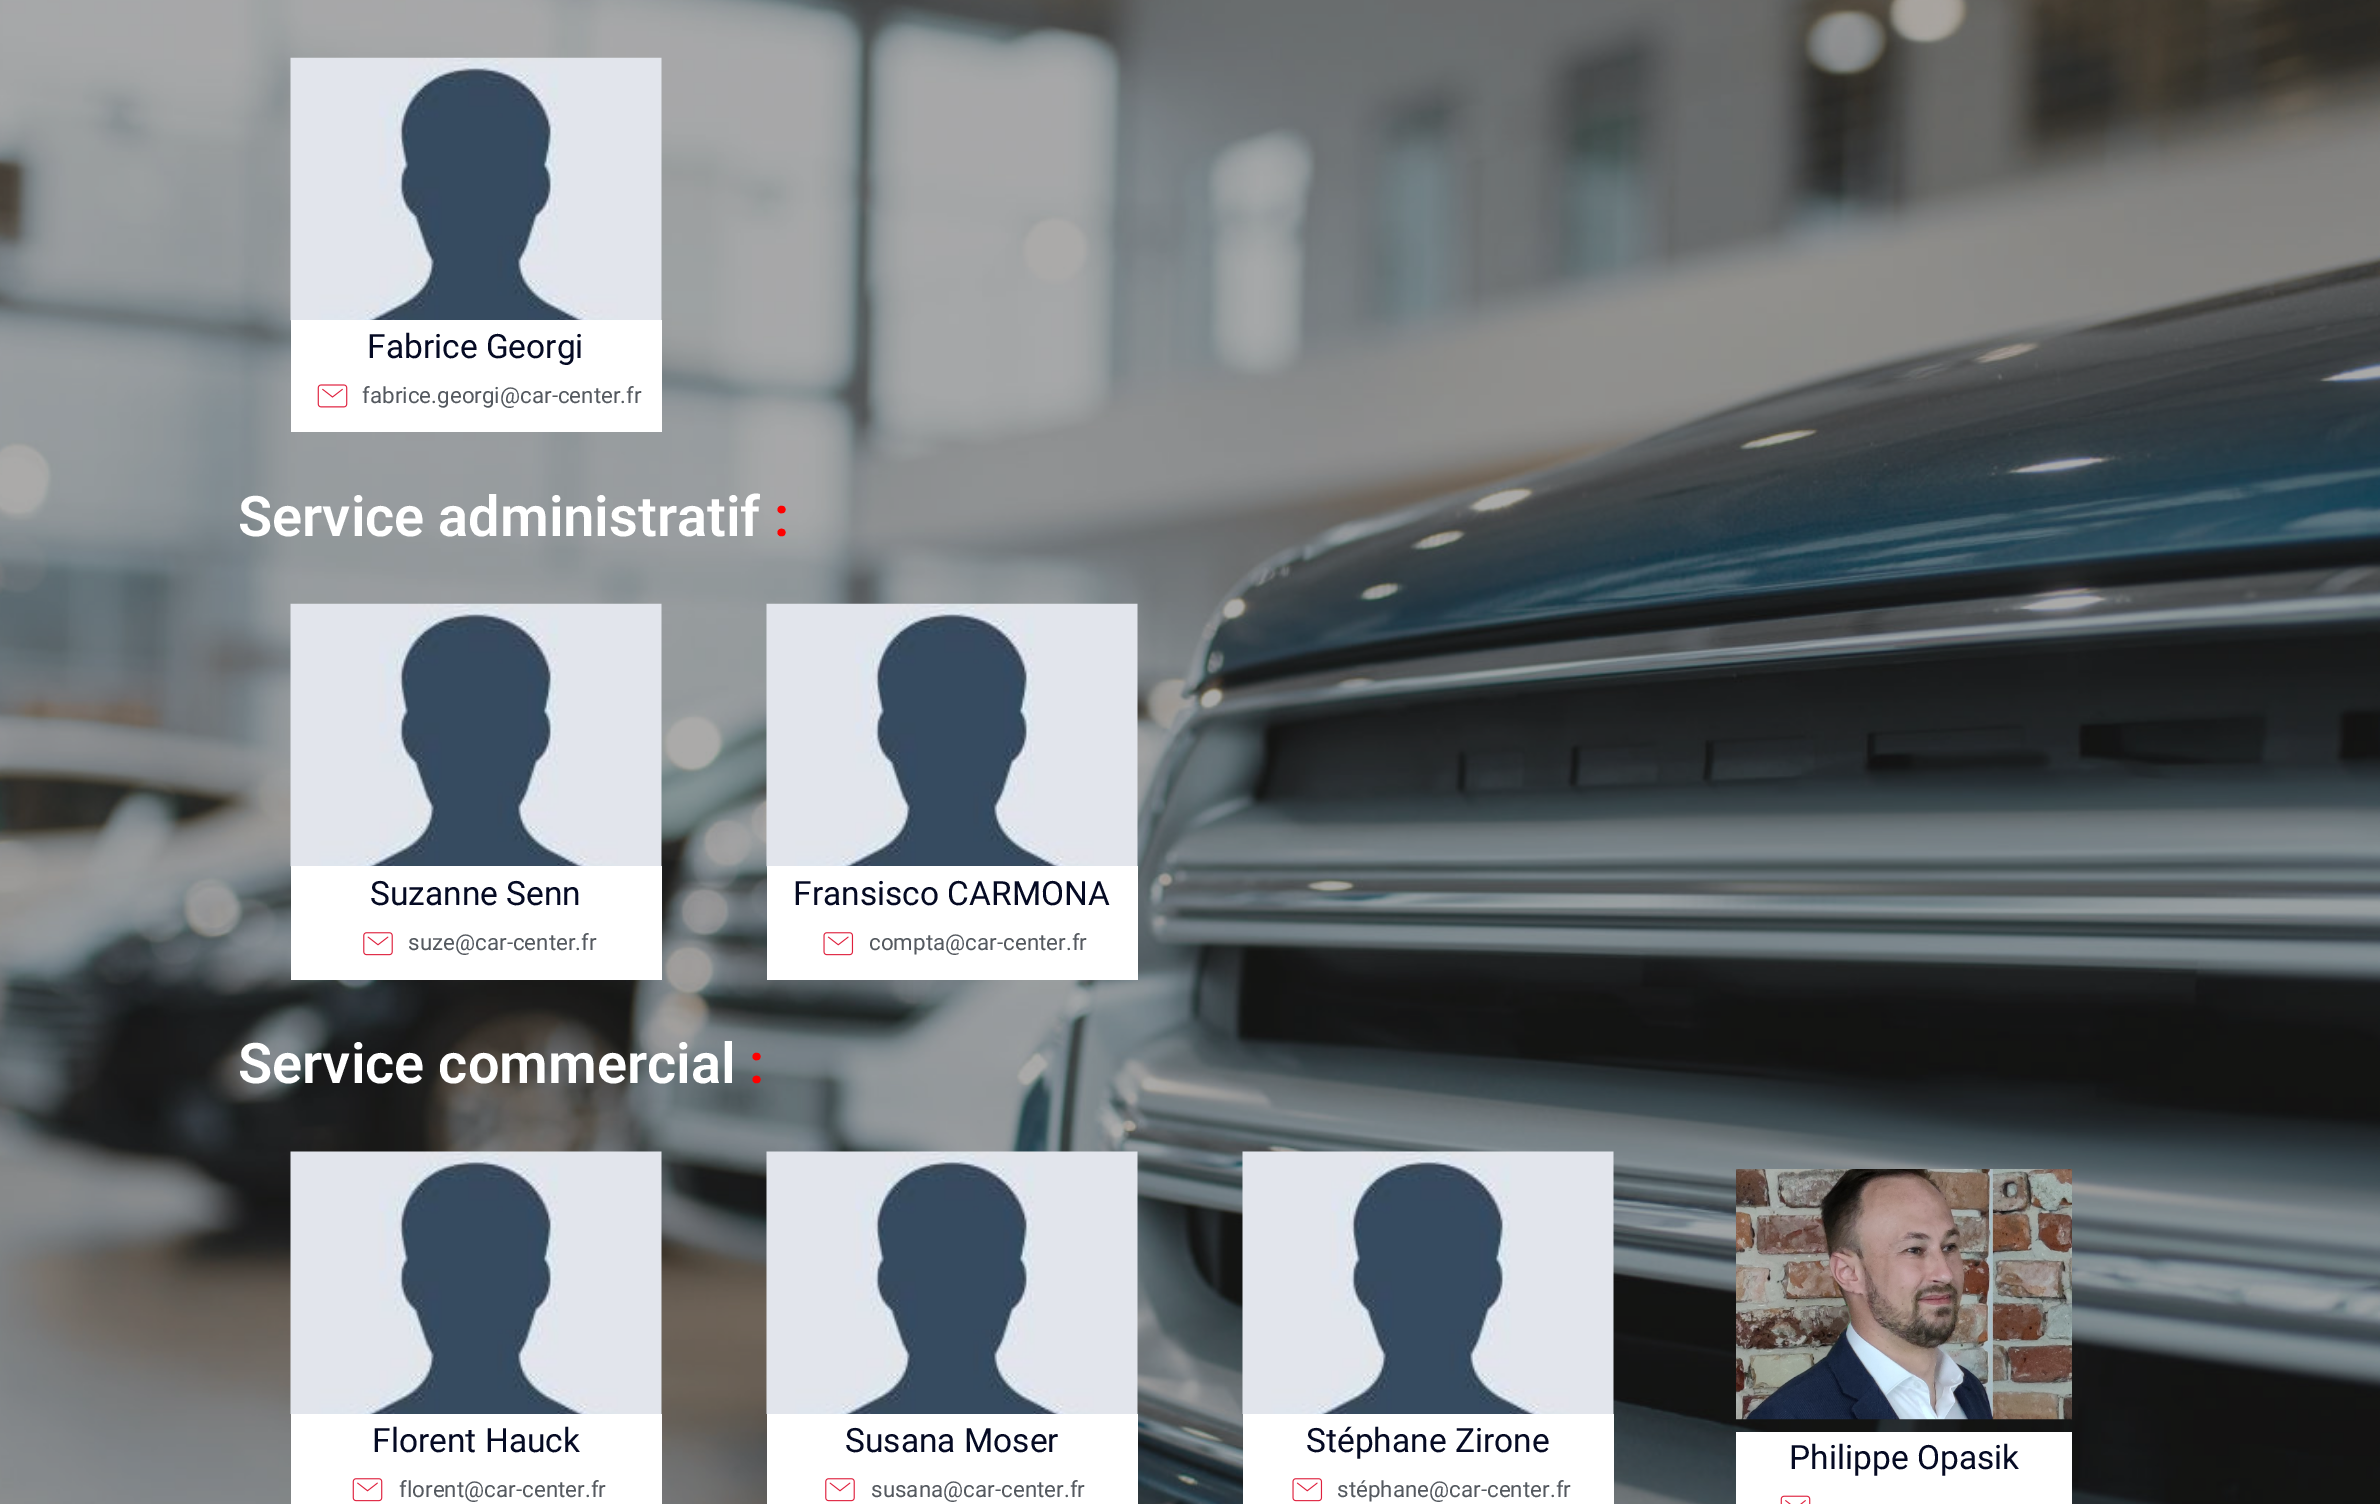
%!PS
<< /PageSize [2380 1504] /PageUsesTransparency true >> setpagedevice
/alpha { dup .setfillconstantalpha .setstrokeconstantalpha } def
/picture { 5 dict begin { /h /w /y /x /name } { exch def } forall
  gsave x y translate w h scale
  w h 8 [w 0 0 h 0 0] name (r) file false 3 colorimage grestore end } def
0 .pushpdf14devicefilter
0 1504 translate 1 -1 scale
4 setmiterlimit
1 setgray
0 0 2380 1504 rectfill
(img1.rgb) 0 0 2380 1504 picture
0.4 alpha
0.173 0.169 0.161 setrgbcolor
0 0 2380 481 rectfill
1 alpha
(img2.rgb) 290 57 372 264 picture
1 setgray
291 320 371 112 rectfill
/Roboto-Regular [33.5 0 0 -33.5 0 0] selectfont
0.02 0.039 0.137 setrgbcolor
367 358 moveto (Fabrice Georgi) show
(img3.rgb) 317 384 31 24 picture
/Roboto-Regular [22.4 0 0 -22.4 0 0] selectfont
0.329 0.349 0.373 setrgbcolor
362 403 moveto (fabrice.georgi@car-center.fr) show
0.4 alpha
0.173 0.169 0.161 setrgbcolor
0 481 2380 548 rectfill
/Roboto-SemiBold [56 0 0 -56 0 0] selectfont
1 alpha
1 setgray
238 536 moveto (Service administratif) show
1 0 0 setrgbcolor
774 536 moveto (:) show
(img4.rgb) 290 603 372 264 picture
1 setgray
291 866 371 114 rectfill
/Roboto-Regular [33.5 0 0 -33.5 0 0] selectfont
0.02 0.039 0.137 setrgbcolor
370 905 moveto (Suzanne Senn) show
(img5.rgb) 363 932 30 24 picture
/Roboto-Regular [22.4 0 0 -22.4 0 0] selectfont
0.329 0.349 0.373 setrgbcolor
408 950 moveto (suze@car-center.fr) show
(img6.rgb) 766 603 372 264 picture
1 setgray
767 866 371 114 rectfill
/Roboto-Regular [33.5 0 0 -33.5 0 0] selectfont
0.02 0.039 0.137 setrgbcolor
793 905 moveto (Fransisco CARMONA) show
(img7.rgb) 823 932 31 24 picture
/Roboto-Regular [22.4 0 0 -22.4 0 0] selectfont
0.329 0.349 0.373 setrgbcolor
869 950 moveto (compta@car-center.fr) show
0.4 alpha
0.173 0.169 0.161 setrgbcolor
0 1029 2380 475 rectfill
/Roboto-SemiBold [56 0 0 -56 0 0] selectfont
1 alpha
1 setgray
238 1083 moveto (Service commercial) show
1 0 0 setrgbcolor
749 1083 moveto (:) show
(img8.rgb) 290 1151 372 263 picture
1 setgray
291 1414 371 90 rectfill
/Roboto-Regular [33.5 0 0 -33.5 0 0] selectfont
0.02 0.039 0.137 setrgbcolor
372 1452 moveto (Florent Hauck) show
(img9.rgb) 352 1478 31 24 picture
/Roboto-Regular [22.4 0 0 -22.4 0 0] selectfont
0.329 0.349 0.373 setrgbcolor
399 1497 moveto (florent@car-center.fr) show
(img10.rgb) 766 1151 372 263 picture
1 setgray
767 1414 371 90 rectfill
/Roboto-Regular [33.5 0 0 -33.5 0 0] selectfont
0.02 0.039 0.137 setrgbcolor
845 1452 moveto (Susana Moser) show
(img5.rgb) 825 1478 30 24 picture
/Roboto-Regular [22.4 0 0 -22.4 0 0] selectfont
0.329 0.349 0.373 setrgbcolor
871 1497 moveto (susana@car-center.fr) show
(img11.rgb) 1242 1151 372 263 picture
1 setgray
1243 1414 371 90 rectfill
/Roboto-Regular [33.5 0 0 -33.5 0 0] selectfont
0.02 0.039 0.137 setrgbcolor
1306 1452 moveto (Stéphane Zirone) show
(img7.rgb) 1292 1478 31 24 picture
/Roboto-Regular [22.4 0 0 -22.4 0 0] selectfont
0.329 0.349 0.373 setrgbcolor
1337 1497 moveto (stéphane@car-center.fr) show
(img12.rgb) 1736 1169 336 251 picture
1 setgray
1736 1432 336 72 rectfill
/Roboto-Regular [33.5 0 0 -33.5 0 0] selectfont
0.02 0.039 0.137 setrgbcolor
1789 1469 moveto (Philippe Opasik) show
(img13.rgb) 1780 1495 31 9 picture
.poppdf14devicefilter showpage
